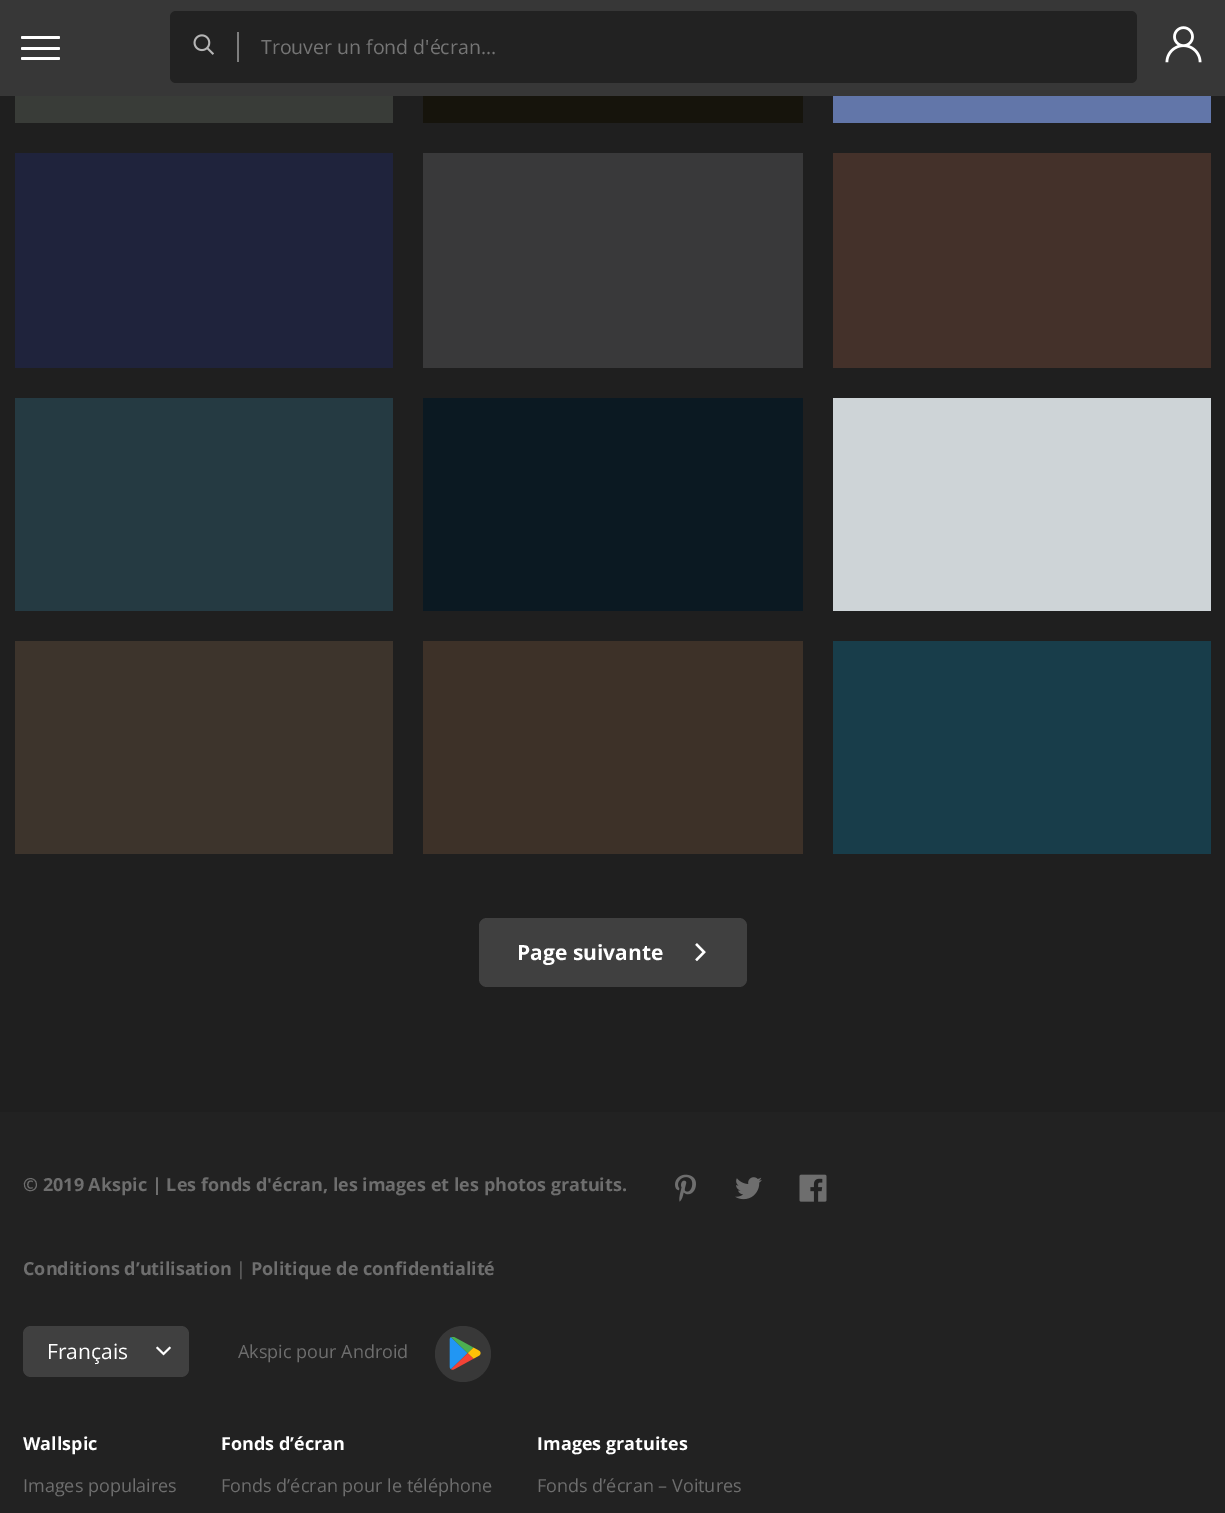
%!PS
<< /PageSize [1225 1513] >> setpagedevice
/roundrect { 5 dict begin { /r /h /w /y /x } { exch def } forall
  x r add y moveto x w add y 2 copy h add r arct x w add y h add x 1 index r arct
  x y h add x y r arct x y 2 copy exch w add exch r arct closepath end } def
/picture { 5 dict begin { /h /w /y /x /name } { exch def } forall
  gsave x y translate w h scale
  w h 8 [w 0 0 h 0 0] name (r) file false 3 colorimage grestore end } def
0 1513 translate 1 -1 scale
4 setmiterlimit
0.122 setgray
0 0 1225 1513 rectfill
0.216 setgray
0 0 1225 96 rectfill
1 setgray
21 36 39 3 1.5 roundrect fill
21 47 39 3 1.5 roundrect fill
21 57 39 3 1.5 roundrect fill
0.133 setgray
170 11 967 72 6 roundrect fill
(img1.rgb) 193 34 21 21 picture
0.494 setgray
237 32 2 30 rectfill
/OpenSans-Regular [19.5 0 0 -19.5 0 0] selectfont
0.459 setgray
261 54 moveto (Trouver un fond d'écran…) show
(img2.rgb) 1165 26 37 37 picture
0.224 0.235 0.22 setrgbcolor
15 96 378 27 rectfill
0.122 0.137 0.235 setrgbcolor
15 153 378 215 rectfill
0.145 0.227 0.259 setrgbcolor
15 398 378 213 rectfill
0.239 0.204 0.173 setrgbcolor
15 641 378 213 rectfill
0.086 0.078 0.047 setrgbcolor
423 96 380 27 rectfill
0.224 0.224 0.227 setrgbcolor
423 153 380 215 rectfill
0.043 0.098 0.133 setrgbcolor
423 398 380 213 rectfill
0.239 0.192 0.157 setrgbcolor
423 641 380 213 rectfill
0.384 0.463 0.663 setrgbcolor
833 96 378 27 rectfill
0.267 0.192 0.165 setrgbcolor
833 153 378 215 rectfill
0.808 0.831 0.843 setrgbcolor
833 398 378 213 rectfill
0.094 0.239 0.29 setrgbcolor
833 641 378 213 rectfill
0.251 setgray
479 918 268 69 8 roundrect fill
/OpenSans-Bold [21 0 0 -21 0 0] selectfont
1 setgray
517 960 moveto (Page suivante) show
(img3.rgb) 695 943 11 19 picture
0.133 setgray
0 1112 1225 401 rectfill
/OpenSans-Bold [18 0 0 -18 0 0] selectfont
0.431 setgray
23 1191 moveto (© 2019 Akspic | Les fonds d'écran, les images et les photos gratuits.) show
(img4.rgb) 675 1174 21 28 picture
(img5.rgb) 735 1177 27 23 picture
(img6.rgb) 799 1174 28 28 picture
23 1275 moveto (Conditions d’utilisation) show
/OpenSans-Regular [18 0 0 -18 0 0] selectfont
236 1275 moveto (|) show
/OpenSans-Bold [18 0 0 -18 0 0] selectfont
251 1275 moveto (Politique de confidentialité) show
0.251 setgray
23 1326 166 51 8 roundrect fill
/OpenSans-Regular [21 0 0 -21 0 0] selectfont
1 setgray
47 1359 moveto (Français) show
(img7.rgb) 156 1346 15 10 picture
/OpenSans-Regular [18 0 0 -18 0 0] selectfont
0.431 setgray
238 1358 moveto (Akspic pour Android) show
0.22 setgray
newpath 463 1354 28 0 360 arc closepath fill
(img8.rgb) 449 1337 32 33 picture
/OpenSans-Bold [18 0 0 -18 0 0] selectfont
1 setgray
23 1450 moveto (Wallspic) show
/OpenSans-Regular [18 0 0 -18 0 0] selectfont
0.431 setgray
23 1492 moveto (Images populaires) show
/OpenSans-Bold [18 0 0 -18 0 0] selectfont
1 setgray
221 1450 moveto (Fonds d’écran) show
/OpenSans-Regular [18 0 0 -18 0 0] selectfont
0.431 setgray
221 1492 moveto (Fonds d’écran pour le téléphone) show
/OpenSans-Bold [18 0 0 -18 0 0] selectfont
1 setgray
537 1450 moveto (Images gratuites) show
/OpenSans-Regular [18 0 0 -18 0 0] selectfont
0.431 setgray
537 1492 moveto (Fonds d’écran – Voitures) show
showpage
